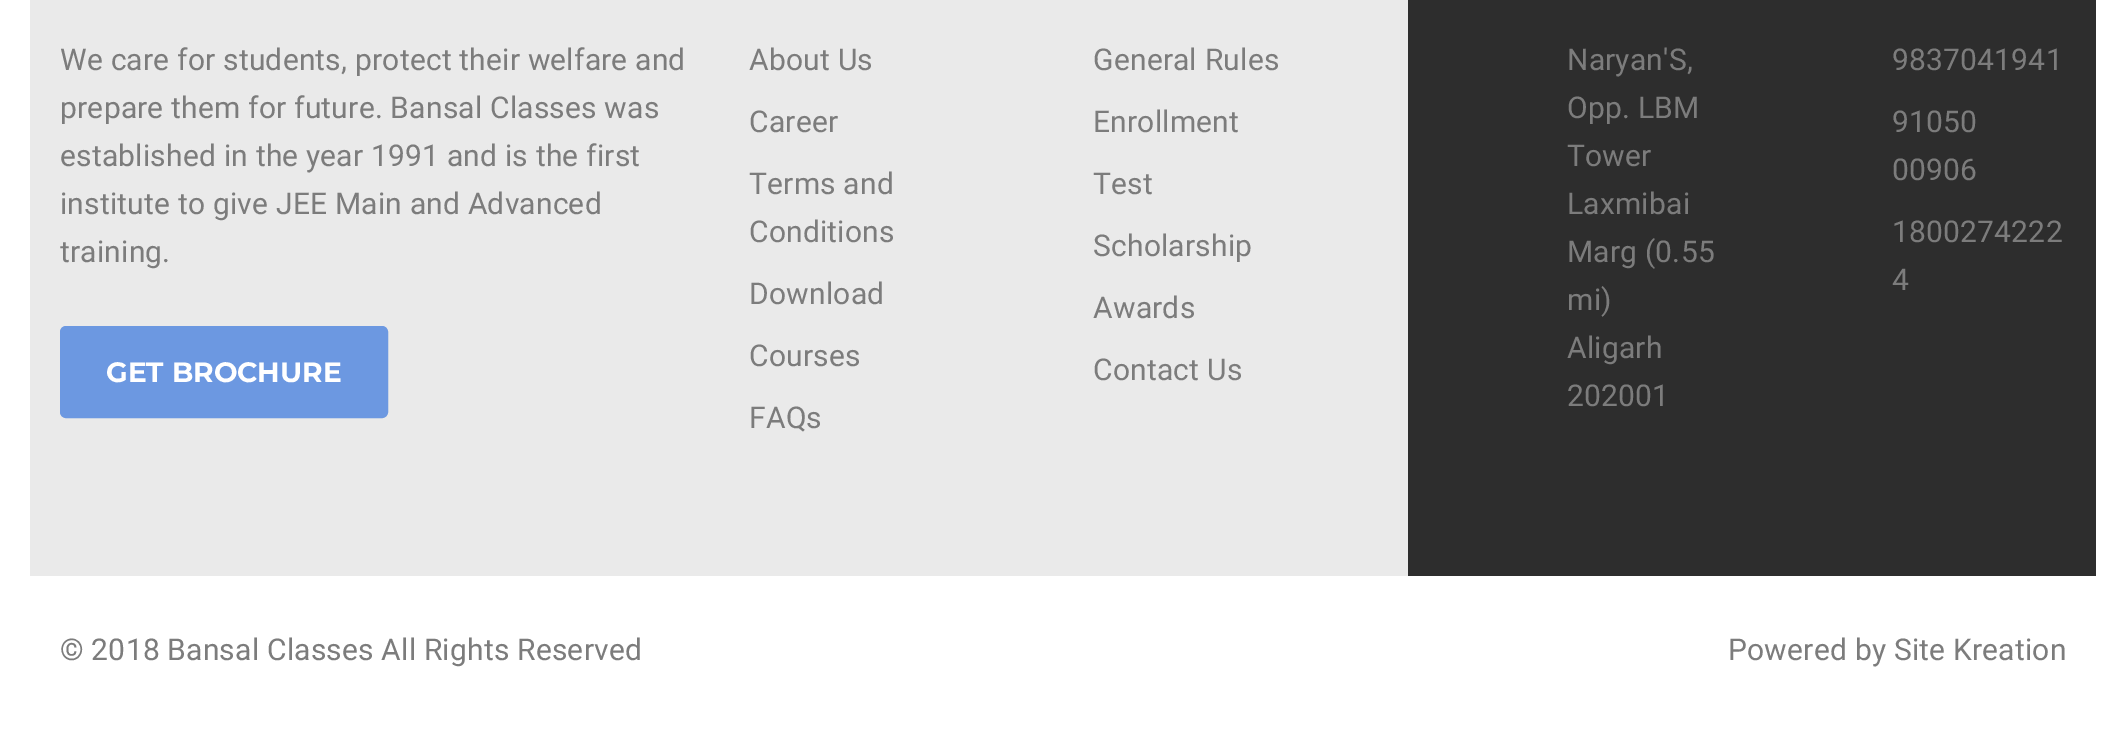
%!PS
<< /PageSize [2125 754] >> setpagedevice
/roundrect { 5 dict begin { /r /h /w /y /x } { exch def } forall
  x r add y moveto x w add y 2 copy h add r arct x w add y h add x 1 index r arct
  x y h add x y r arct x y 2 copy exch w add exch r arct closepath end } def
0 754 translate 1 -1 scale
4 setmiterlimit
1 setgray
0 0 2125 754 rectfill
0.176 setgray
1408 0 688 576 rectfill
0.918 setgray
30 0 1378 576 rectfill
/Roboto-Regular [30 0 0 -30 0 0] selectfont
0.486 setgray
60 70 moveto 0.2 0 (We care for students, protect their welfare and) ashow
60 118 moveto 0.2 0 (prepare them for future. Bansal Classes was) ashow
60 166 moveto 0.2 0 (established in the year 1991 and is the first) ashow
60 214 moveto 0.2 0 (institute to give JEE Main and Advanced) ashow
60 262 moveto 0.2 0 (training.) ashow
0.424 0.596 0.882 setrgbcolor
62 328 324 88 4 roundrect gsave fill grestore
4 setlinewidth
stroke
/Montserrat-Bold [28 0 0 -28 0 0] selectfont
1 setgray
106 382 moveto (GET BROCHURE) show
/Roboto-Regular [30 0 0 -30 0 0] selectfont
0.486 setgray
749 70 moveto 0.2 0 (About Us) ashow
749 132 moveto 0.2 0 (Career) ashow
749 194 moveto 0.2 0 (Terms and) ashow
749 242 moveto 0.2 0 (Conditions) ashow
749 304 moveto 0.2 0 (Download) ashow
749 366 moveto 0.2 0 (Courses) ashow
749 428 moveto 0.2 0 (FAQs) ashow
1093 70 moveto 0.2 0 (General Rules) ashow
1093 132 moveto 0.2 0 (Enrollment) ashow
1093 194 moveto 0.2 0 (Test) ashow
1093 256 moveto 0.2 0 (Scholarship) ashow
1093 318 moveto 0.2 0 (Awards) ashow
1093 380 moveto 0.2 0 (Contact Us) ashow
1567 70 moveto 0.2 0 (Naryan'S,) ashow
1567 118 moveto 0.2 0 (Opp. LBM) ashow
1567 166 moveto 0.2 0 (Tower) ashow
1567 214 moveto 0.2 0 (Laxmibai) ashow
1567 262 moveto 0.2 0 (Marg \(0.55) ashow
1567 310 moveto 0.2 0 (mi\)) ashow
1567 358 moveto 0.2 0 (Aligarh) ashow
1567 406 moveto 0.2 0 (202001) ashow
1892 70 moveto 0.2 0 (9837041941) ashow
1892 132 moveto 0.2 0 (91050) ashow
1892 180 moveto 0.2 0 (00906) ashow
1892 242 moveto 0.2 0 (1800274222) ashow
1892 290 moveto 0.2 0 (4) ashow
60 660 moveto 0.2 0 (© 2018 Bansal Classes All Rights Reserved) ashow
1728 660 moveto 0.2 0 (Powered by Site Kreation) ashow
showpage
